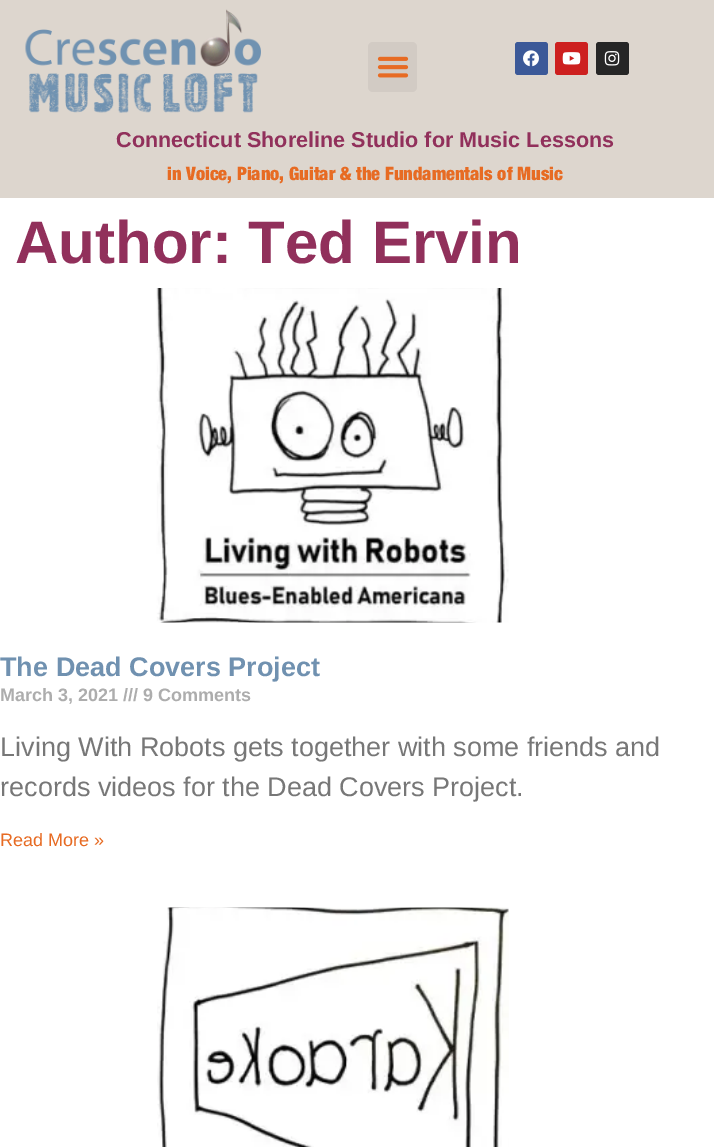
%!PS
<< /PageSize [714 1147] >> setpagedevice
/roundrect { 5 dict begin { /r /h /w /y /x } { exch def } forall
  x r add y moveto x w add y 2 copy h add r arct x w add y h add x 1 index r arct
  x y h add x y r arct x y 2 copy exch w add exch r arct closepath end } def
/picture { 5 dict begin { /h /w /y /x /name } { exch def } forall
  gsave x y translate w h scale
  w h 8 [w 0 0 h 0 0] name (r) file false 3 colorimage grestore end } def
0 1147 translate 1 -1 scale
4 setmiterlimit
1 setgray
0 0 714 1147 rectfill
0.867 0.839 0.808 setrgbcolor
0 0 714 198 rectfill
(img1.rgb) 25 9 236 104 picture
0.824 0.796 0.769 setrgbcolor
368 42 49 50 5 roundrect fill
(img2.rgb) 377 56 32 22 picture
0.231 0.349 0.596 setrgbcolor
515 42 33 33 3 roundrect fill
(img3.rgb) 523 50 16 17 picture
0.804 0.125 0.122 setrgbcolor
555 42 33 33 3 roundrect fill
(img4.rgb) 562 52 19 13 picture
0.149 setgray
596 42 33 33 3 roundrect fill
(img5.rgb) 604 51 16 15 picture
/LiberationSans-Bold [21.6 0 0 -21.6 0 0] selectfont
0.569 0.188 0.357 setrgbcolor
116 147 moveto (Connecticut Shoreline Studio for Music Lessons) show
/HelveticaNeue-Black [18.4 0 0 -18.4 0 0] selectfont
0.906 0.42 0.137 setrgbcolor
167 180 moveto (in Voice, Piano, Guitar & the Fundamentals of Music) show
/LiberationSans-Bold [60 0 0 -60 0 0] selectfont
0.569 0.188 0.357 setrgbcolor
15 263 moveto (Author: Ted Ervin) show
(img6.rgb) 156 288 353 335 picture
/LiberationSans-Bold [27 0 0 -27 0 0] selectfont
0.439 0.569 0.69 setrgbcolor
0 676 moveto (The Dead Covers Project) show
/LiberationSans-Bold [18 0 0 -18 0 0] selectfont
0.678 setgray
0 701 moveto (March 3, 2021 /// 9 Comments) show
/LiberationSans-Regular [27 0 0 -27 0 0] selectfont
0.467 setgray
0 756 moveto (Living With Robots gets together with some friends and) show
0 796 moveto (records videos for the Dead Covers Project.) show
/LiberationSans-Regular [18 0 0 -18 0 0] selectfont
0.906 0.42 0.137 setrgbcolor
0 846 moveto (Read More ») show
(img7.rgb) 157 907 352 240 picture
showpage
